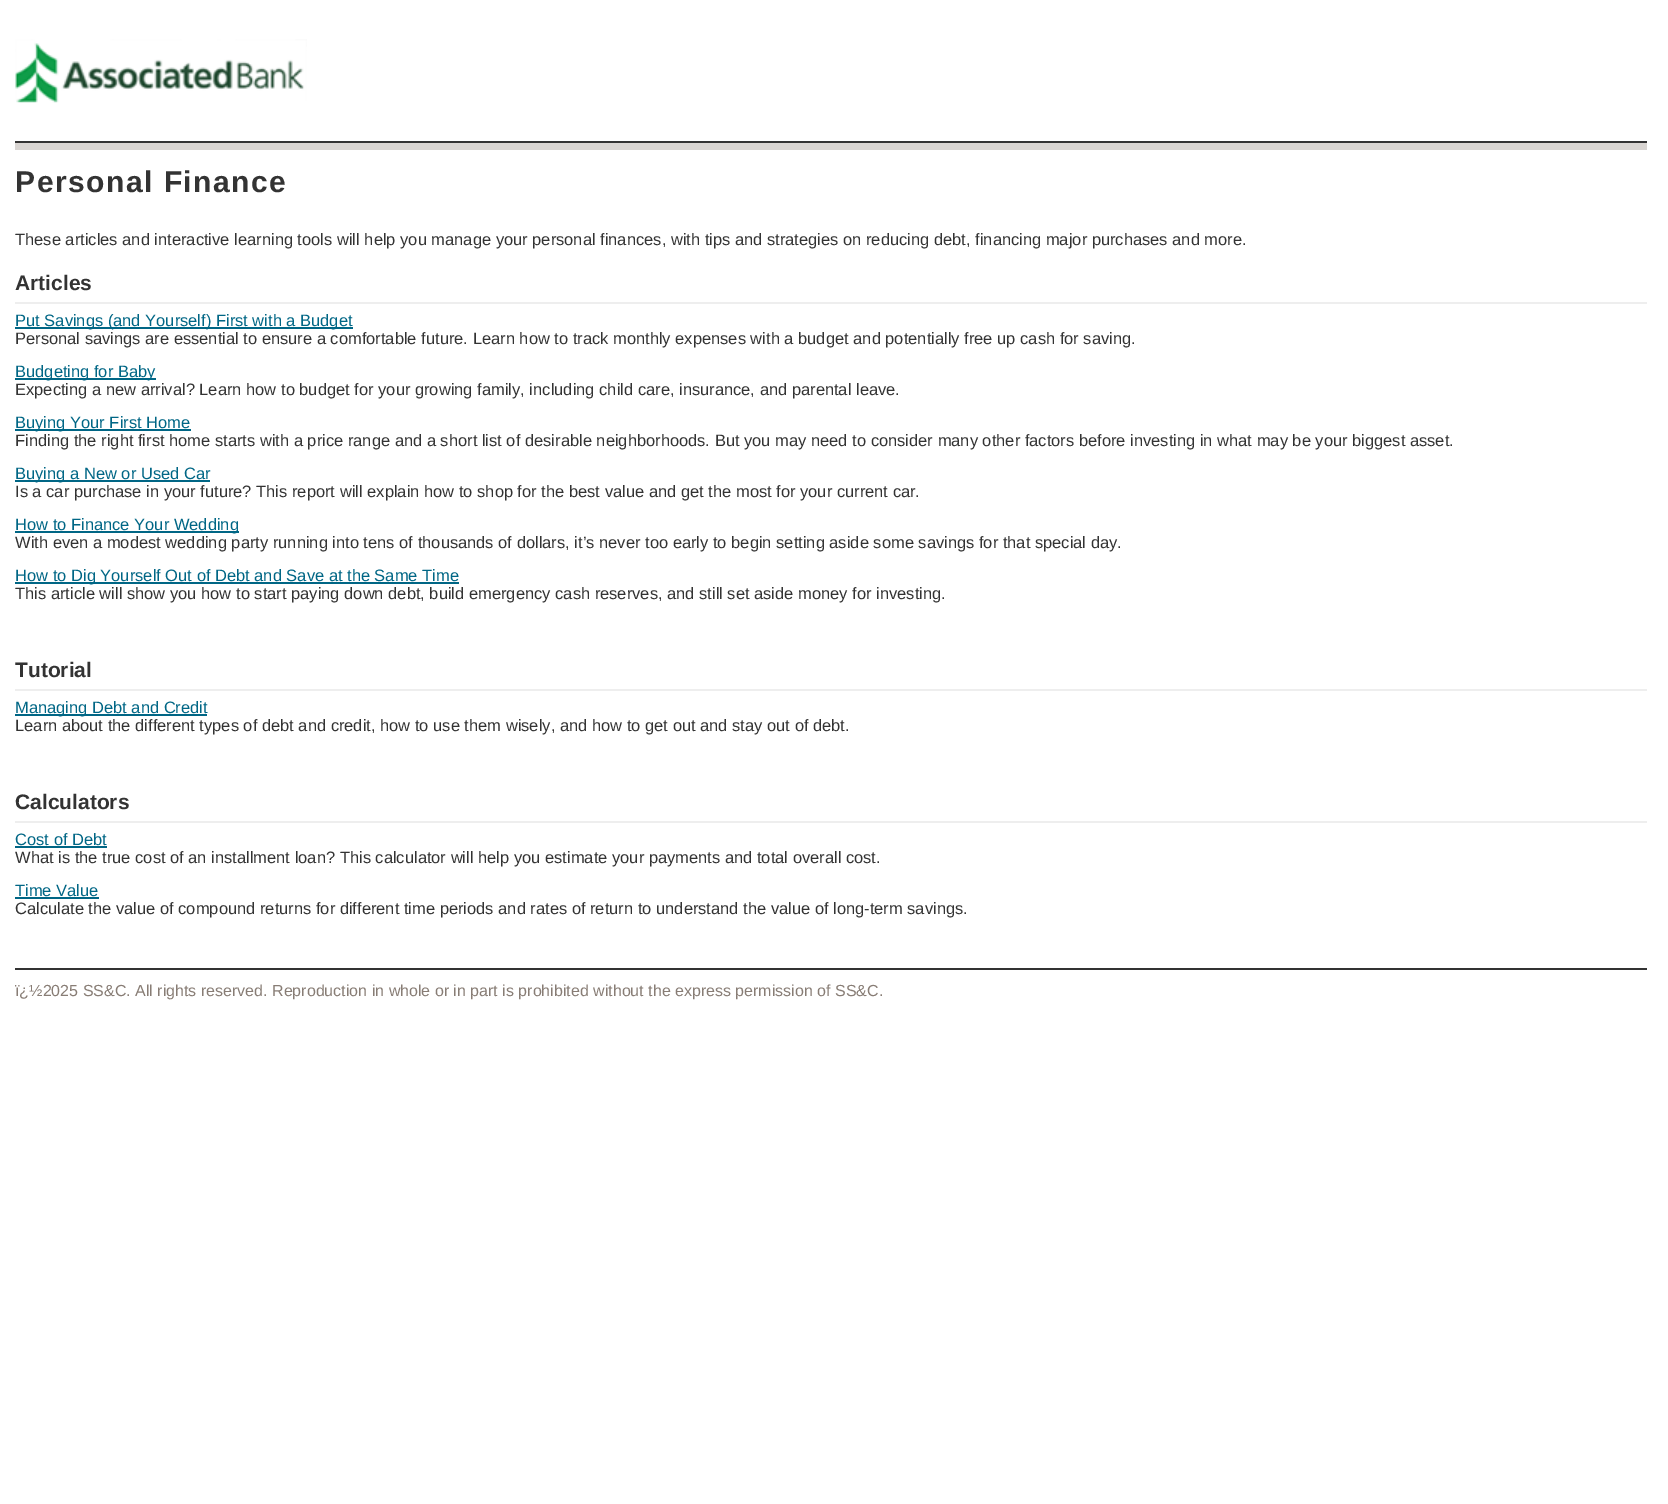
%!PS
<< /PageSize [1668 1504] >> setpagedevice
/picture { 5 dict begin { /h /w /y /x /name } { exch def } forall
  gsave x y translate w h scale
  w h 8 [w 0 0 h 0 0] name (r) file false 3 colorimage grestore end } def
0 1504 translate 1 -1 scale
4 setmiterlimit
1 setgray
0 0 1668 1504 rectfill
(img1.rgb) 15 39 292 64 picture
0.851 0.835 0.824 setrgbcolor
15 143 1632 7 rectfill
0.2 setgray
15 141 1632 2 rectfill
/LiberationSans-Bold [30 0 0 -30 0 0] selectfont
15 192 moveto 1.5 0 (Personal Finance) ashow
/LiberationSans-Regular [16.5 0 0 -16.5 0 0] selectfont
15 245 moveto (These articles and interactive learning tools will help you manage your personal finances, with tips and strategies on reducing debt, financing major purchases and more.) show
0.933 setgray
15 302 1632 2 rectfill
/LiberationSans-Bold [21 0 0 -21 0 0] selectfont
0.2 setgray
15 290 moveto (Articles) show
0 0.4 0.522 setrgbcolor
15 327 338 2 rectfill
/LiberationSans-Regular [16.5 0 0 -16.5 0 0] selectfont
15 326 moveto (Put Savings \(and Yourself\) First with a Budget) show
0.2 setgray
15 344 moveto (Personal savings are essential to ensure a comfortable future. Learn how to track monthly expenses with a budget and potentially free up cash for saving.) show
0 0.4 0.522 setrgbcolor
15 378 141 2 rectfill
15 377 moveto (Budgeting for Baby) show
0.2 setgray
15 395 moveto (Expecting a new arrival? Learn how to budget for your growing family, including child care, insurance, and parental leave.) show
0 0.4 0.522 setrgbcolor
15 429 176 2 rectfill
15 428 moveto (Buying Your First Home) show
0.2 setgray
15 446 moveto (Finding the right first home starts with a price range and a short list of desirable neighborhoods. But you may need to consider many other factors before investing in what may be your biggest asset.) show
0 0.4 0.522 setrgbcolor
15 480 195 2 rectfill
15 479 moveto (Buying a New or Used Car) show
0.2 setgray
15 497 moveto (Is a car purchase in your future? This report will explain how to shop for the best value and get the most for your current car.) show
0 0.4 0.522 setrgbcolor
15 531 224 2 rectfill
15 530 moveto (How to Finance Your Wedding) show
0.2 setgray
15 548 moveto (With even a modest wedding party running into tens of thousands of dollars, it’s never too early to begin setting aside some savings for that special day.) show
0 0.4 0.522 setrgbcolor
15 582 444 2 rectfill
15 581 moveto (How to Dig Yourself Out of Debt and Save at the Same Time) show
0.2 setgray
15 599 moveto (This article will show you how to start paying down debt, build emergency cash reserves, and still set aside money for investing.) show
0.933 setgray
15 689 1632 2 rectfill
/LiberationSans-Bold [21 0 0 -21 0 0] selectfont
0.2 setgray
15 677 moveto (Tutorial) show
0 0.4 0.522 setrgbcolor
15 714 192 2 rectfill
/LiberationSans-Regular [16.5 0 0 -16.5 0 0] selectfont
15 713 moveto (Managing Debt and Credit) show
0.2 setgray
15 731 moveto (Learn about the different types of debt and credit, how to use them wisely, and how to get out and stay out of debt.) show
0.933 setgray
15 821 1632 2 rectfill
/LiberationSans-Bold [21 0 0 -21 0 0] selectfont
0.2 setgray
15 809 moveto (Calculators) show
/LiberationSans-Regular [16.5 0 0 -16.5 0 0] selectfont
0 0.4 0.522 setrgbcolor
15 845 moveto (Cost of Debt) show
15 846 92 2 rectfill
0.2 setgray
15 863 moveto (What is the true cost of an installment loan? This calculator will help you estimate your payments and total overall cost.) show
0 0.4 0.522 setrgbcolor
15 896 moveto (Time Value) show
15 897 84 2 rectfill
0.2 setgray
15 914 moveto (Calculate the value of compound returns for different time periods and rates of return to understand the value of long-term savings.) show
15 968 1632 2 rectfill
/LiberationSans-Regular [16 0 0 -16 0 0] selectfont
0.533 0.49 0.459 setrgbcolor
15 996 moveto (ï¿½2025 SS&C. All rights reserved. Reproduction in whole or in part is prohibited without the express permission of SS&C.) show
showpage
